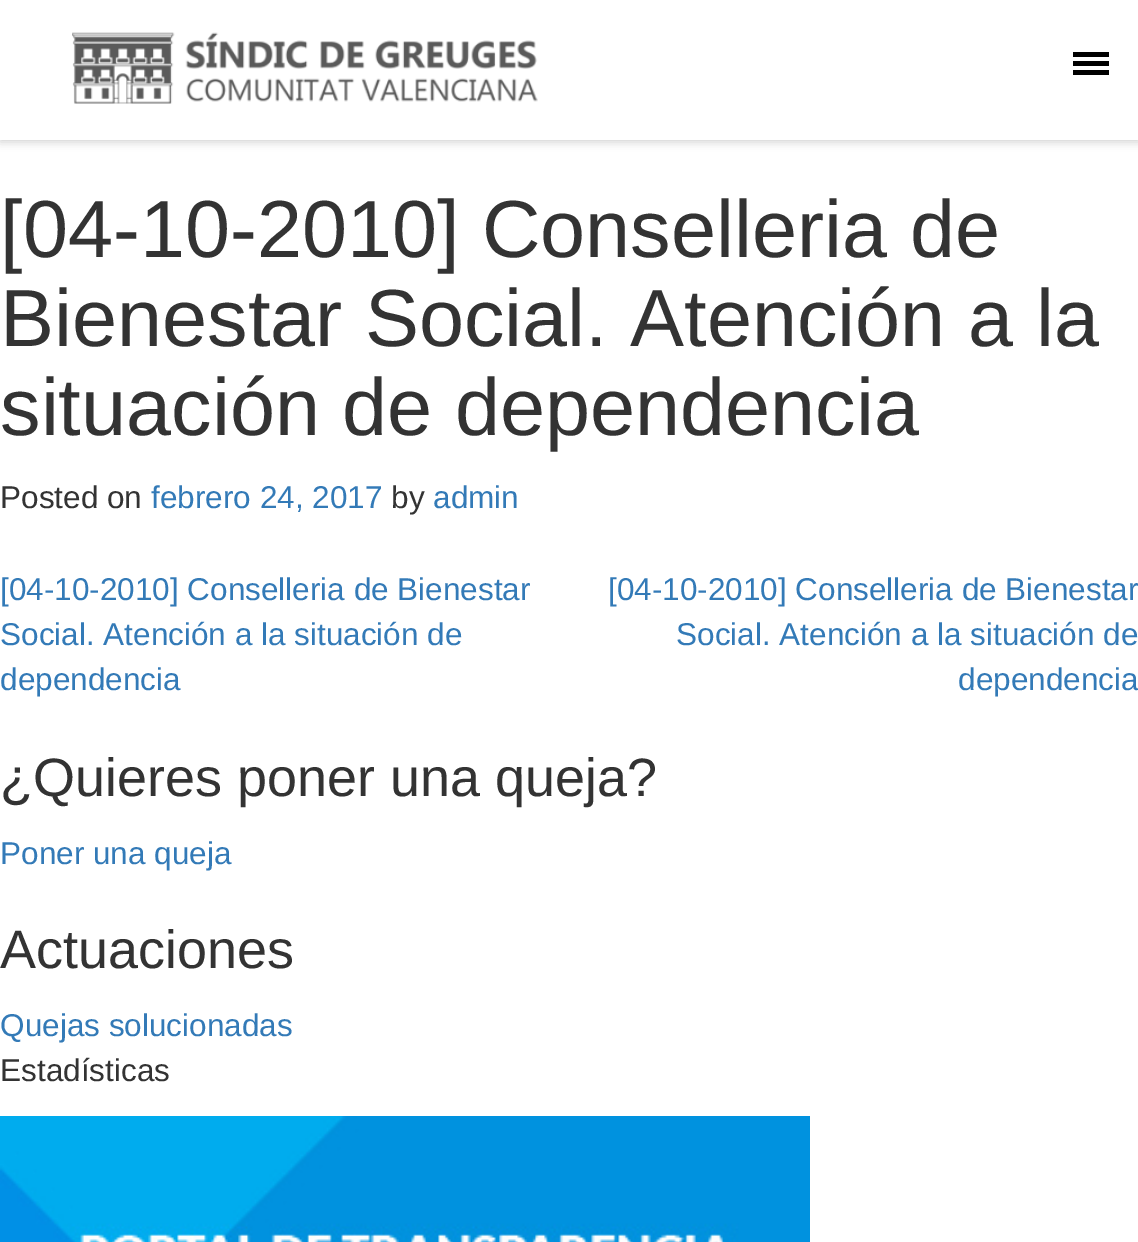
%!PS
<< /PageSize [1138 1242] /PageUsesTransparency true >> setpagedevice
/alpha { dup .setfillconstantalpha .setstrokeconstantalpha } def
/roundrect { 5 dict begin { /r /h /w /y /x } { exch def } forall
  x r add y moveto x w add y 2 copy h add r arct x w add y h add x 1 index r arct
  x y h add x y r arct x y 2 copy exch w add exch r arct closepath end } def
/shadow { 12 dict begin { /a /b /q /h /w /y /x } { exch def } forall gsave /was 0 def
  9 -2 -9 { dup b mul 4 div /e exch def 1 sub .425 mul 2.718 exch exp 1 add a .99 .min exch div /now exch def
    1 1 now sub 1 was sub div sub alpha /was now def
    w h .min e 2 mul add 0 gt { x e sub y e sub w e 2 mul add h e 2 mul add
      q e add b .6 mul add w h .min 2 div e add .min 0 .max roundrect fill } if } for grestore end } def
/picture { 5 dict begin { /h /w /y /x /name } { exch def } forall
  gsave x y translate w h scale
  w h 8 [w 0 0 h 0 0] name (r) file false 3 colorimage grestore end } def
0 .pushpdf14devicefilter
0 1242 translate 1 -1 scale
4 setmiterlimit
1 setgray
0 0 1138 1242 rectfill
0.761 setgray
0 2 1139 140 0 4.5 0.75 shadow
1 setgray
0 0 1138 140 rectfill
(img1.rgb) 72 32 466 72 picture
0 setgray
1073 52 36 5 rectfill
1073 61 36 5 rectfill
1073 70 36 5 rectfill
/LiberationSans-Regular [81 0 0 -81 0 0] selectfont
0.2 setgray
0 257 moveto ([04-10-2010] Conselleria de) show
0 346 moveto (Bienestar Social. Atención a la) show
0 435 moveto (situación de dependencia) show
/LiberationSans-Regular [31.5 0 0 -31.5 0 0] selectfont
0 508 moveto (Posted on) show
0.2 0.478 0.718 setrgbcolor
151 508 moveto (febrero 24, 2017) show
0.2 setgray
391 508 moveto (by) show
0.2 0.478 0.718 setrgbcolor
433 508 moveto (admin) show
0 600 moveto ([04-10-2010] Conselleria de Bienestar) show
0 645 moveto (Social. Atención a la situación de) show
0 690 moveto (dependencia) show
608 600 moveto ([04-10-2010] Conselleria de Bienestar) show
676 645 moveto (Social. Atención a la situación de) show
958 690 moveto (dependencia) show
/LiberationSans-Regular [54 0 0 -54 0 0] selectfont
0.2 setgray
0 796 moveto (¿Quieres poner una queja?) show
/LiberationSans-Regular [31.5 0 0 -31.5 0 0] selectfont
0.2 0.478 0.718 setrgbcolor
0 864 moveto (Poner una queja) show
/LiberationSans-Regular [54 0 0 -54 0 0] selectfont
0.2 setgray
0 968 moveto (Actuaciones) show
/LiberationSans-Regular [31.5 0 0 -31.5 0 0] selectfont
0.2 0.478 0.718 setrgbcolor
0 1036 moveto (Quejas solucionadas) show
0.2 setgray
0 1081 moveto (Estadísticas) show
(img2.rgb) 0 1116 810 126 picture
.poppdf14devicefilter showpage
